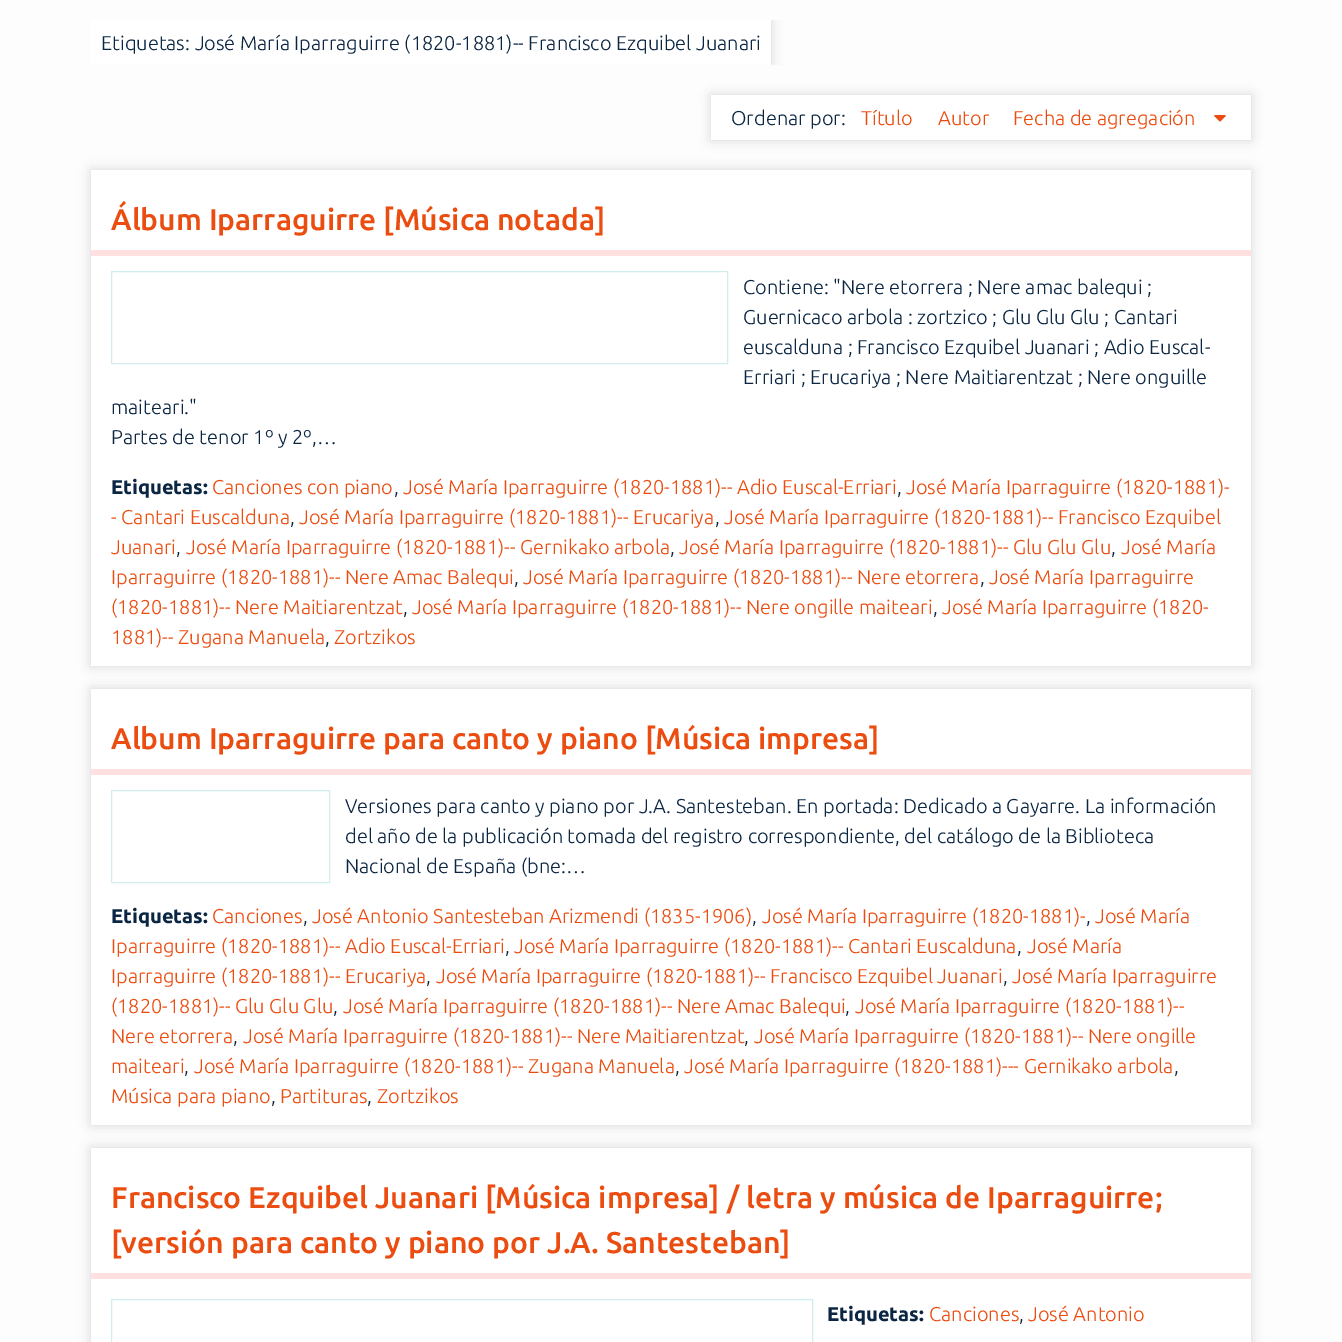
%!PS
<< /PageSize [1342 1342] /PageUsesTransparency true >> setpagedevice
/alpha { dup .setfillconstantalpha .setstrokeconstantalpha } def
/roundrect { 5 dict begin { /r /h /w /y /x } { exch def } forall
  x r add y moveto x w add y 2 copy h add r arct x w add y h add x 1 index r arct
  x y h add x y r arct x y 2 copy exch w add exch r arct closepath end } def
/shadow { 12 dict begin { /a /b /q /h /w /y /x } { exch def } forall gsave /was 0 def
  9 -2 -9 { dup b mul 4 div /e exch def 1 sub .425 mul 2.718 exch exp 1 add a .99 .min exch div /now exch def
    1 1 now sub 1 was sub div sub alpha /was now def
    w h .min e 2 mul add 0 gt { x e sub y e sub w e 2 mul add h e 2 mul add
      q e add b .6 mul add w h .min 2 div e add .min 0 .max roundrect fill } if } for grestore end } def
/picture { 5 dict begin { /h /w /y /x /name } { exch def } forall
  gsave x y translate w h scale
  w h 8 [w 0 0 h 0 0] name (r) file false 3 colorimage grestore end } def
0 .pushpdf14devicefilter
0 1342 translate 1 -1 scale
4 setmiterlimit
0.992 setgray
0 0 1342 1342 rectfill
gsave
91 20 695 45 rectclip
0 setgray
91 20 680 45 0 6 0.15 shadow
grestore
1 setgray
91 20 680 45 rectfill
/Ubuntu-Light [20 0 0 -20 0 0] selectfont
0.043 0.149 0.263 setrgbcolor
101 50 moveto (Etiquetas: José María Iparraguirre \(1820-1881\)-- Francisco Ezquibel Juanari) show
0 setgray
711 95 540 45 0 6 0.15 shadow
1 setgray
711 95 540 45 rectfill
0.043 0.149 0.263 setrgbcolor
731 125 moveto (Ordenar por:) show
0.922 0.298 0.059 setrgbcolor
861 125 moveto (Título) show
938 125 moveto (Autor) show
1013 125 moveto (Fecha de agregación) show
(img1.rgb) 1214 115 12 7 picture
0 setgray
91 170 1160 496 0 6 0.15 shadow
1 setgray
91 170 1160 496 rectfill
1 0.878 0.878 setrgbcolor
91 250 1160 6 rectfill
/Ubuntu-Medium [30 0 0 -30 0 0] selectfont
0.922 0.298 0.059 setrgbcolor
111 230 moveto (Álbum Iparraguirre [Música notada]) show
0.816 0.933 0.933 setrgbcolor
111.5 271.5 616 92 rectstroke
/Ubuntu-Light [20 0 0 -20 0 0] selectfont
0.043 0.149 0.263 setrgbcolor
743 294 moveto (Contiene: "Nere etorrera ; Nere amac balequi ;) show
743 324 moveto (Guernicaco arbola : zortzico ; Glu Glu Glu ; Cantari) show
743 354 moveto (euscalduna ; Francisco Ezquibel Juanari ; Adio Euscal-) show
743 384 moveto (Erriari ; Erucariya ; Nere Maitiarentzat ; Nere onguille) show
111 414 moveto (maiteari.") show
111 444 moveto (Partes de tenor 1º y 2º,…) show
/Ubuntu-Bold [20 0 0 -20 0 0] selectfont
111 494 moveto (Etiquetas:) show
/Ubuntu-Light [20 0 0 -20 0 0] selectfont
0.922 0.298 0.059 setrgbcolor
212 494 moveto (Canciones con piano) show
0.043 0.149 0.263 setrgbcolor
394 494 moveto (,) show
0.922 0.298 0.059 setrgbcolor
403 494 moveto (José María Iparraguirre \(1820-1881\)-- Adio Euscal-Erriari) show
0.043 0.149 0.263 setrgbcolor
897 494 moveto (,) show
0.922 0.298 0.059 setrgbcolor
906 494 moveto (José María Iparraguirre \(1820-1881\)-) show
111 524 moveto (- Cantari Euscalduna) show
0.043 0.149 0.263 setrgbcolor
290 524 moveto (,) show
0.922 0.298 0.059 setrgbcolor
299 524 moveto (José María Iparraguirre \(1820-1881\)-- Erucariya) show
0.043 0.149 0.263 setrgbcolor
715 524 moveto (,) show
0.922 0.298 0.059 setrgbcolor
724 524 moveto (José María Iparraguirre \(1820-1881\)-- Francisco Ezquibel) show
111 554 moveto (Juanari) show
0.043 0.149 0.263 setrgbcolor
176 554 moveto (,) show
0.922 0.298 0.059 setrgbcolor
186 554 moveto (José María Iparraguirre \(1820-1881\)-- Gernikako arbola) show
0.043 0.149 0.263 setrgbcolor
670 554 moveto (,) show
0.922 0.298 0.059 setrgbcolor
679 554 moveto (José María Iparraguirre \(1820-1881\)-- Glu Glu Glu) show
0.043 0.149 0.263 setrgbcolor
1111 554 moveto (,) show
0.922 0.298 0.059 setrgbcolor
1121 554 moveto (José María) show
111 584 moveto (Iparraguirre \(1820-1881\)-- Nere Amac Balequi) show
0.043 0.149 0.263 setrgbcolor
514 584 moveto (,) show
0.922 0.298 0.059 setrgbcolor
523 584 moveto (José María Iparraguirre \(1820-1881\)-- Nere etorrera) show
0.043 0.149 0.263 setrgbcolor
980 584 moveto (,) show
0.922 0.298 0.059 setrgbcolor
989 584 moveto (José María Iparraguirre) show
111 614 moveto (\(1820-1881\)-- Nere Maitiarentzat) show
0.043 0.149 0.263 setrgbcolor
403 614 moveto (,) show
0.922 0.298 0.059 setrgbcolor
412 614 moveto (José María Iparraguirre \(1820-1881\)-- Nere ongille maiteari) show
0.043 0.149 0.263 setrgbcolor
933 614 moveto (,) show
0.922 0.298 0.059 setrgbcolor
942 614 moveto (José María Iparraguirre \(1820-) show
111 644 moveto (1881\)-- Zugana Manuela) show
0.043 0.149 0.263 setrgbcolor
325 644 moveto (,) show
0.922 0.298 0.059 setrgbcolor
334 644 moveto (Zortzikos) show
0 setgray
91 689 1160 436 0 6 0.15 shadow
1 setgray
91 689 1160 436 rectfill
1 0.878 0.878 setrgbcolor
91 769 1160 6 rectfill
/Ubuntu-Medium [30 0 0 -30 0 0] selectfont
0.922 0.298 0.059 setrgbcolor
111 749 moveto (Album Iparraguirre para canto y piano [Música impresa]) show
0.816 0.933 0.933 setrgbcolor
111.5 790.5 218 92 rectstroke
/Ubuntu-Light [20 0 0 -20 0 0] selectfont
0.043 0.149 0.263 setrgbcolor
345 813 moveto (Versiones para canto y piano por J.A. Santesteban. En portada: Dedicado a Gayarre. La información) show
345 843 moveto (del año de la publicación tomada del registro correspondiente, del catálogo de la Biblioteca) show
345 873 moveto (Nacional de España \(bne:…) show
/Ubuntu-Bold [20 0 0 -20 0 0] selectfont
111 923 moveto (Etiquetas:) show
/Ubuntu-Light [20 0 0 -20 0 0] selectfont
0.922 0.298 0.059 setrgbcolor
212 923 moveto (Canciones) show
0.043 0.149 0.263 setrgbcolor
303 923 moveto (,) show
0.922 0.298 0.059 setrgbcolor
312 923 moveto (José Antonio Santesteban Arizmendi \(1835-1906\)) show
0.043 0.149 0.263 setrgbcolor
752 923 moveto (,) show
0.922 0.298 0.059 setrgbcolor
762 923 moveto (José María Iparraguirre \(1820-1881\)-) show
0.043 0.149 0.263 setrgbcolor
1086 923 moveto (,) show
0.922 0.298 0.059 setrgbcolor
1095 923 moveto (José María) show
111 953 moveto (Iparraguirre \(1820-1881\)-- Adio Euscal-Erriari) show
0.043 0.149 0.263 setrgbcolor
505 953 moveto (,) show
0.922 0.298 0.059 setrgbcolor
514 953 moveto (José María Iparraguirre \(1820-1881\)-- Cantari Euscalduna) show
0.043 0.149 0.263 setrgbcolor
1017 953 moveto (,) show
0.922 0.298 0.059 setrgbcolor
1027 953 moveto (José María) show
111 983 moveto (Iparraguirre \(1820-1881\)-- Erucariya) show
0.043 0.149 0.263 setrgbcolor
426 983 moveto (,) show
0.922 0.298 0.059 setrgbcolor
436 983 moveto (José María Iparraguirre \(1820-1881\)-- Francisco Ezquibel Juanari) show
0.043 0.149 0.263 setrgbcolor
1003 983 moveto (,) show
0.922 0.298 0.059 setrgbcolor
1012 983 moveto (José María Iparraguirre) show
111 1013 moveto (\(1820-1881\)-- Glu Glu Glu) show
0.043 0.149 0.263 setrgbcolor
333 1013 moveto (,) show
0.922 0.298 0.059 setrgbcolor
343 1013 moveto (José María Iparraguirre \(1820-1881\)-- Nere Amac Balequi) show
0.043 0.149 0.263 setrgbcolor
845 1013 moveto (,) show
0.922 0.298 0.059 setrgbcolor
855 1013 moveto (José María Iparraguirre \(1820-1881\)--) show
111 1043 moveto (Nere etorrera) show
0.043 0.149 0.263 setrgbcolor
233 1043 moveto (,) show
0.922 0.298 0.059 setrgbcolor
243 1043 moveto (José María Iparraguirre \(1820-1881\)-- Nere Maitiarentzat) show
0.043 0.149 0.263 setrgbcolor
744 1043 moveto (,) show
0.922 0.298 0.059 setrgbcolor
754 1043 moveto (José María Iparraguirre \(1820-1881\)-- Nere ongille) show
111 1073 moveto (maiteari) show
0.043 0.149 0.263 setrgbcolor
184 1073 moveto (,) show
0.922 0.298 0.059 setrgbcolor
194 1073 moveto (José María Iparraguirre \(1820-1881\)-- Zugana Manuela) show
0.043 0.149 0.263 setrgbcolor
675 1073 moveto (,) show
0.922 0.298 0.059 setrgbcolor
684 1073 moveto (José María Iparraguirre \(1820-1881\)--- Gernikako arbola) show
0.043 0.149 0.263 setrgbcolor
1174 1073 moveto (,) show
0.922 0.298 0.059 setrgbcolor
111 1103 moveto (Música para piano) show
0.043 0.149 0.263 setrgbcolor
271 1103 moveto (,) show
0.922 0.298 0.059 setrgbcolor
280 1103 moveto (Partituras) show
0.043 0.149 0.263 setrgbcolor
367 1103 moveto (,) show
0.922 0.298 0.059 setrgbcolor
377 1103 moveto (Zortzikos) show
0 setgray
91 1148 1160 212 0 6 0.15 shadow
1 setgray
91 1148 1160 194 rectfill
1 0.878 0.878 setrgbcolor
91 1273 1160 6 rectfill
/Ubuntu-Medium [30 0 0 -30 0 0] selectfont
0.922 0.298 0.059 setrgbcolor
111 1208 moveto (Francisco Ezquibel Juanari [Música impresa] / letra y música de Iparraguirre;) show
111 1253 moveto ([versión para canto y piano por J.A. Santesteban]) show
0.816 0.933 0.933 setrgbcolor
111.5 1299.5 701 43 rectstroke
/Ubuntu-Bold [20 0 0 -20 0 0] selectfont
0.043 0.149 0.263 setrgbcolor
827 1321 moveto (Etiquetas:) show
/Ubuntu-Light [20 0 0 -20 0 0] selectfont
0.922 0.298 0.059 setrgbcolor
929 1321 moveto (Canciones) show
0.043 0.149 0.263 setrgbcolor
1019 1321 moveto (,) show
0.922 0.298 0.059 setrgbcolor
1028 1321 moveto (José Antonio) show
.poppdf14devicefilter showpage
